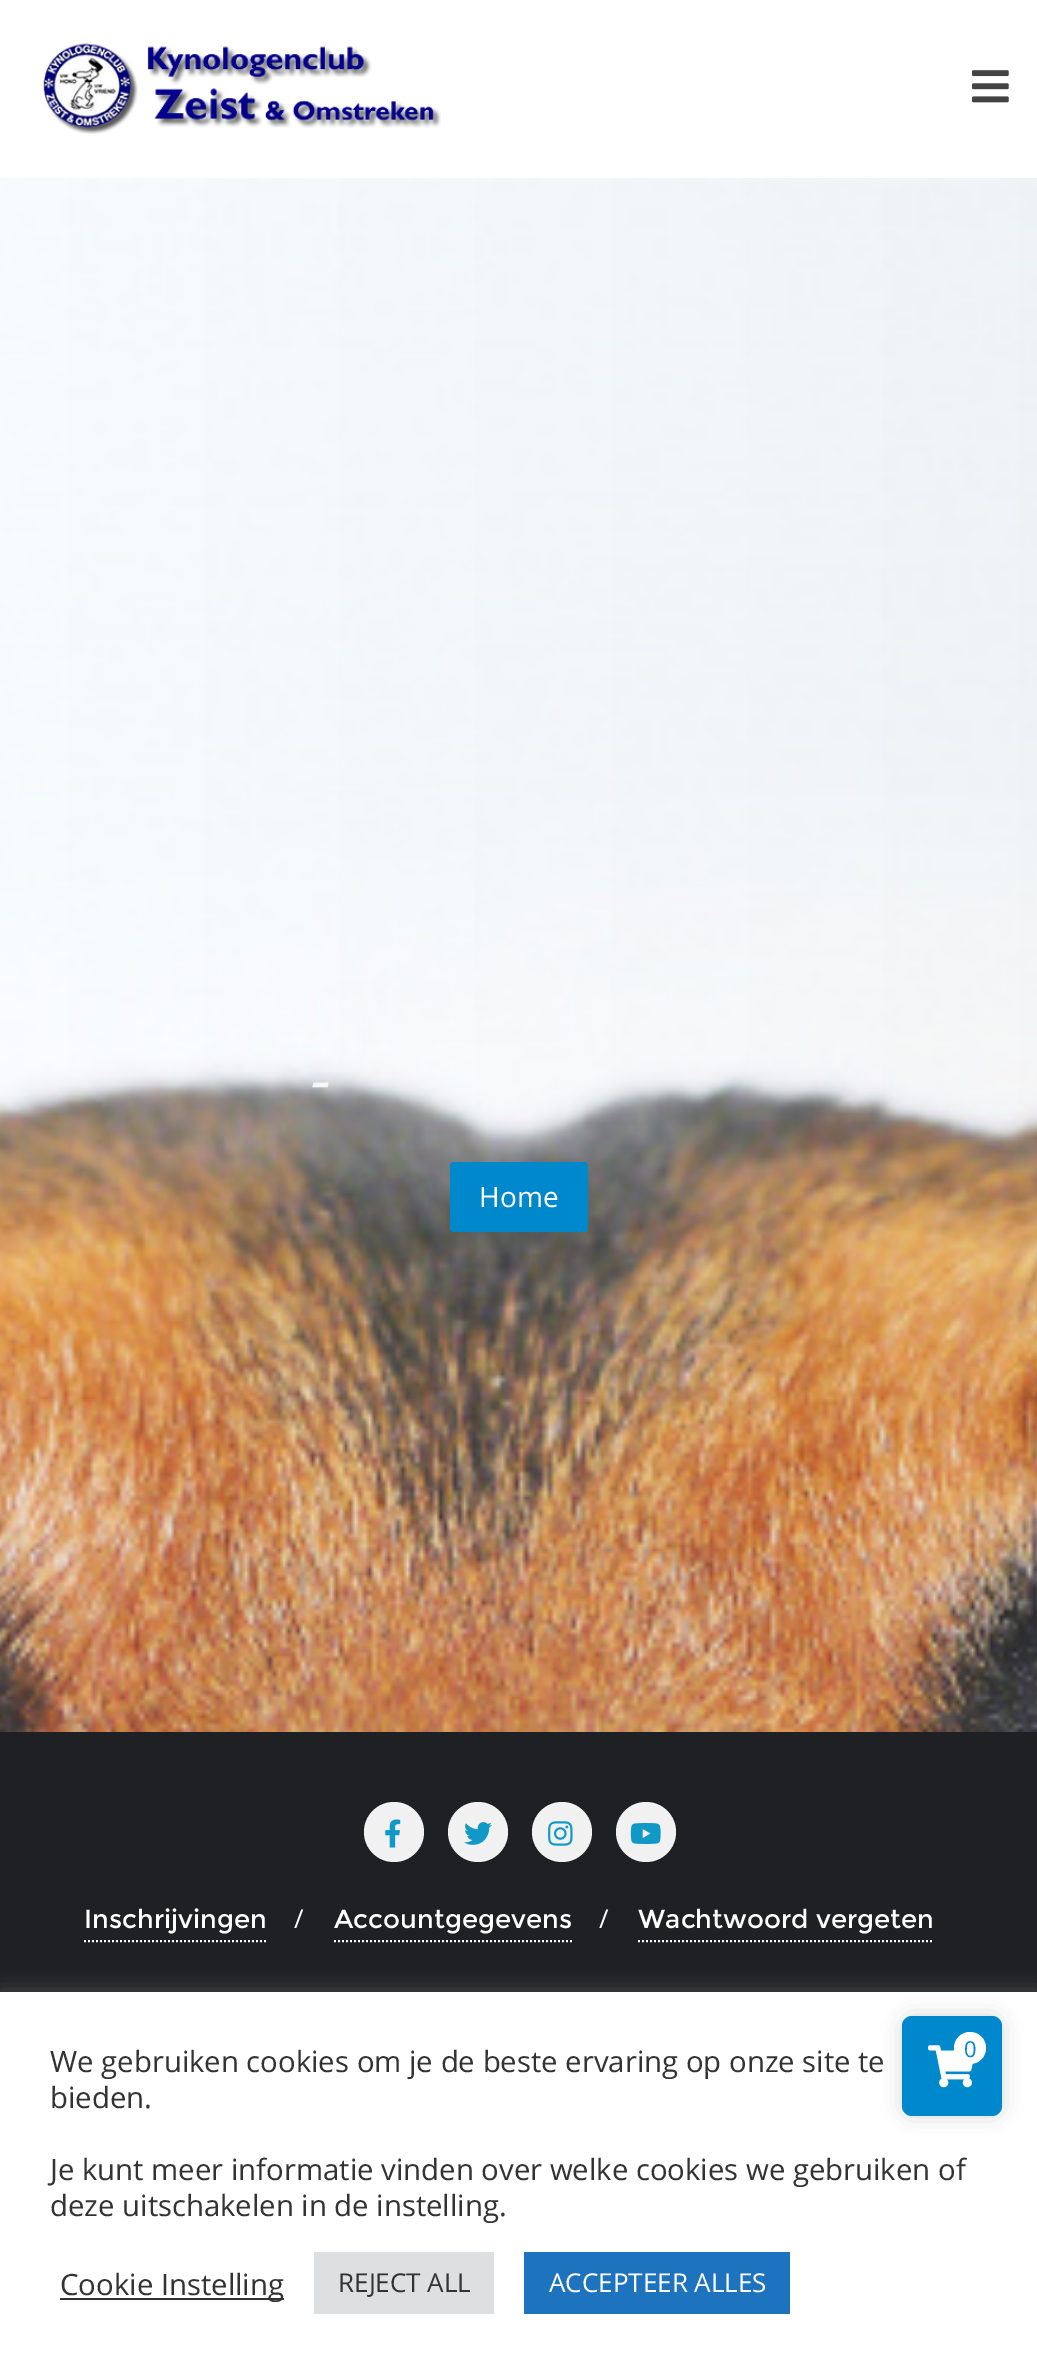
%!PS
<< /PageSize [1037 2373] /PageUsesTransparency true >> setpagedevice
/alpha { dup .setfillconstantalpha .setstrokeconstantalpha } def
/roundrect { 5 dict begin { /r /h /w /y /x } { exch def } forall
  x r add y moveto x w add y 2 copy h add r arct x w add y h add x 1 index r arct
  x y h add x y r arct x y 2 copy exch w add exch r arct closepath end } def
/shadow { 12 dict begin { /a /b /q /h /w /y /x } { exch def } forall gsave /was 0 def
  9 -2 -9 { dup b mul 4 div /e exch def 1 sub .425 mul 2.718 exch exp 1 add a .99 .min exch div /now exch def
    1 1 now sub 1 was sub div sub alpha /was now def
    w h .min e 2 mul add 0 gt { x e sub y e sub w e 2 mul add h e 2 mul add
      q e add b .6 mul add w h .min 2 div e add .min 0 .max roundrect fill } if } for grestore end } def
/picture { 5 dict begin { /h /w /y /x /name } { exch def } forall
  gsave x y translate w h scale
  w h 8 [w 0 0 h 0 0] name (r) file false 3 colorimage grestore end } def
0 .pushpdf14devicefilter
0 2373 translate 1 -1 scale
4 setmiterlimit
1 setgray
0 0 1037 2373 rectfill
(img1.rgb) 42 43 399 91 picture
(img2.rgb) 972 70 37 33 picture
(img3.rgb) 0 178 1037 1554 picture
/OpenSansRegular-Italic [64 0 0 -64 0 0] selectfont
0.969 setgray
306 1102 moveto (-) show
0 0.533 0.8 setrgbcolor
450 1162 138 70 4 roundrect fill
/OpenSansRegular-Regular [28 0 0 -28 0 0] selectfont
1 setgray
479 1207 moveto (Home) show
0.122 0.125 0.141 setrgbcolor
0 1732 1037 260 rectfill
0.945 setgray
newpath 394 1832 30 0 360 arc closepath fill
(img4.rgb) 385 1819 16 29 picture
newpath 478 1832 30 0 360 arc closepath fill
(img5.rgb) 464 1822 28 23 picture
newpath 562 1832 30 0 360 arc closepath fill
(img6.rgb) 548 1821 25 25 picture
newpath 646 1832 30 0 360 arc closepath fill
(img7.rgb) 630 1823 31 21 picture
1 setgray
2 setlinewidth
[2 2] 0 setdash
newpath 84 1941 moveto 266 1941 lineto stroke
/Montserrat-Regular [26 0 0 -26 0 0] selectfont
84 1928 moveto (Inschrijvingen) show
/OpenSansRegular-Regular [26 0 0 -26 0 0] selectfont
294 1928 moveto (/) show
newpath 334 1941 moveto 572 1941 lineto stroke
/Montserrat-Regular [26 0 0 -26 0 0] selectfont
334 1928 moveto (Accountgegevens) show
/OpenSansRegular-Regular [26 0 0 -26 0 0] selectfont
599 1928 moveto (/) show
newpath 638 1941 moveto 934 1941 lineto stroke
/Montserrat-Regular [26 0 0 -26 0 0] selectfont
638 1928 moveto (Wachtwoord vergeten) show
0.675 0.671 0.671 setrgbcolor
0 1990 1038 382 0 10 0.3 shadow
1 setgray
0 1992 1037 381 rectfill
/OpenSansRegular-Regular [29.3 0 0 -29.3 0 0] selectfont
0.2 setgray
50 2072 moveto (We gebruiken cookies om je de beste ervaring op onze site te) show
50 2108 moveto (bieden.) show
50 2180 moveto (Je kunt meer informatie vinden over welke cookies we gebruiken of) show
50 2216 moveto (deze uitschakelen in de instelling.) show
60 2298 224 2 rectfill
60 2295 moveto (Cookie Instelling) show
0.871 0.875 0.878 setrgbcolor
314 2252 180 62 rectfill
/OpenSansRegular-Regular [26 0 0 -26 0 0] selectfont
0.2 setgray
338 2292 moveto (REJECT ALL) show
0.118 0.451 0.745 setrgbcolor
524 2252 266 62 rectfill
1 setgray
549 2292 moveto (ACCEPTEER ALLES) show
0.8 setgray
902 2016 100 100 10 10 0.78 shadow
0 0.533 0.8 setrgbcolor
902 2016 100 100 10 roundrect fill
(img8.rgb) 928 2045 45 43 picture
1 setgray
newpath 970 2048 16 0 360 arc closepath fill
/OpenSansRegular-Regular [22 0 0 -22 0 0] selectfont
0 0.533 0.8 setrgbcolor
964 2057 moveto (0) show
.poppdf14devicefilter showpage
